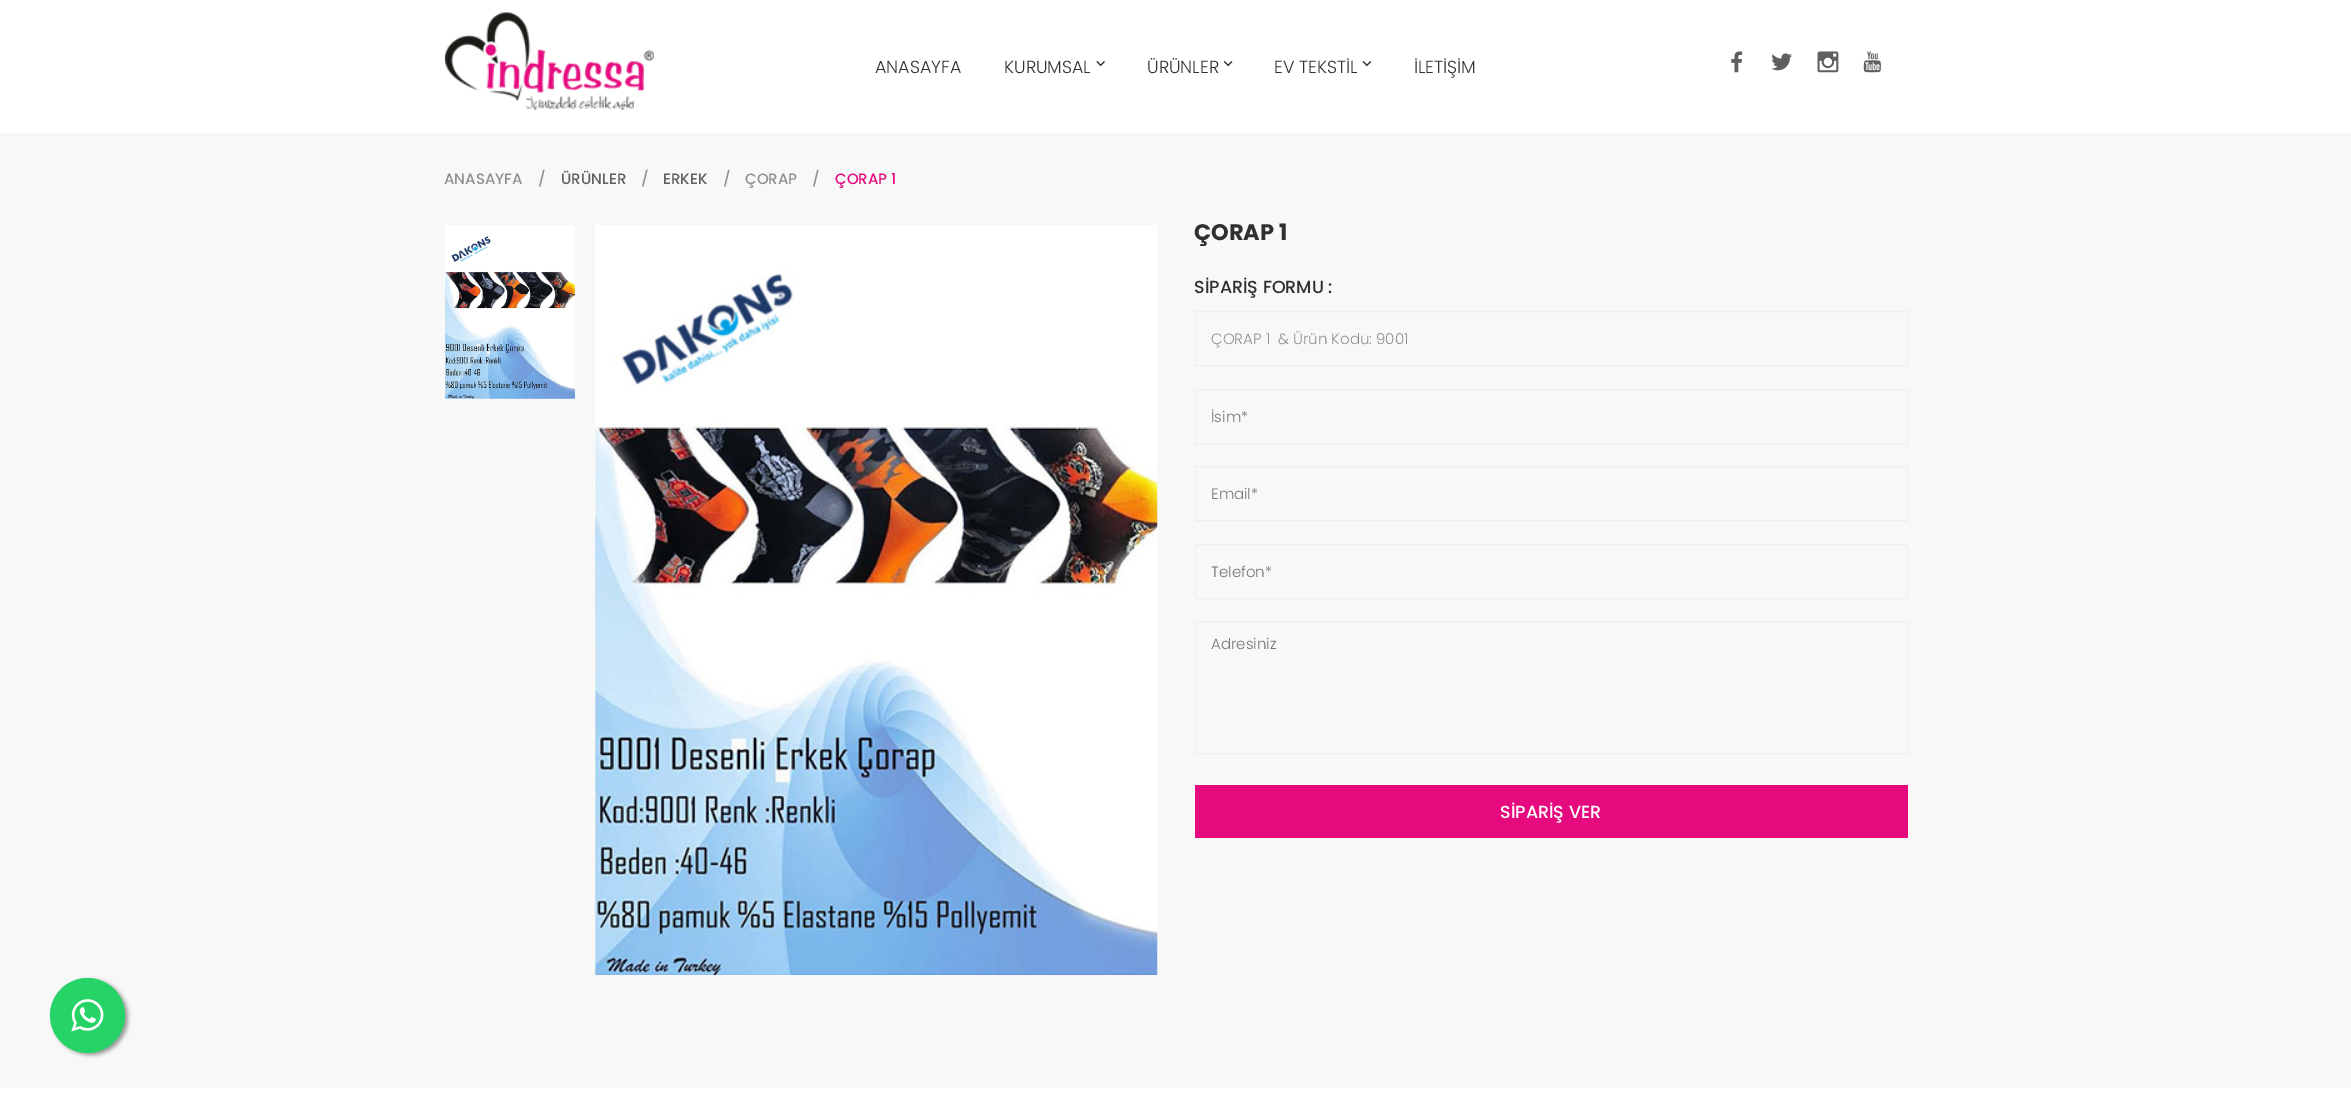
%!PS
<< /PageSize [2351 1102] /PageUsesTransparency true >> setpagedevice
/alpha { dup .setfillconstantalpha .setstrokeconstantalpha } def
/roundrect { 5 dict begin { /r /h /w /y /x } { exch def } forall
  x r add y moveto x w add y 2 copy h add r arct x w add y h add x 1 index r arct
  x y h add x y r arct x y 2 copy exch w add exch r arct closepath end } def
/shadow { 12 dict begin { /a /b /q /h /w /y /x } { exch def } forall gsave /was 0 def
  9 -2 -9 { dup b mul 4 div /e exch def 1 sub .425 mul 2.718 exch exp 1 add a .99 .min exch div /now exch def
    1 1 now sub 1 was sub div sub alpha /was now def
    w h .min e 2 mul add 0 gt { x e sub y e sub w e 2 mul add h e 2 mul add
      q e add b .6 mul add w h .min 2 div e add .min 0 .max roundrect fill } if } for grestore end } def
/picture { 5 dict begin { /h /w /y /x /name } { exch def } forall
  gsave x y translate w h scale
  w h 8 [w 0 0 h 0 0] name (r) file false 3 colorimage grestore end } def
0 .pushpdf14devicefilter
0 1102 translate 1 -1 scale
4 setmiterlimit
1 setgray
0 0 2351 1102 rectfill
(img1.rgb) 445 12 209 98 picture
/Poppins-Light [17.5 0 0 -17.5 0 0] selectfont
0.188 setgray
875 73 moveto (ANASAYFA) show
1004 73 moveto (KURUMSAL) show
(img2.rgb) 1096 61 9 6 picture
1147 73 moveto (ÜRÜNLER) show
(img3.rgb) 1223 61 10 6 picture
1274 73 moveto (EV TEKSTİL) show
(img4.rgb) 1362 61 10 6 picture
1414 73 moveto (İLETİŞİM) show
(img5.rgb) 1731 51 12 22 picture
(img6.rgb) 1771 53 21 18 picture
(img7.rgb) 1817 51 22 22 picture
(img8.rgb) 1863 51 18 22 picture
0.973 setgray
0 133 2351 955 rectfill
/Poppins-Medium [15 0 0 -15 0 0] selectfont
0.565 setgray
444 184 moveto (ANASAYFA) show
538 184 moveto (/) show
0.376 setgray
561 184 moveto (ÜRÜNLER) show
0.565 setgray
641 184 moveto (/) show
0.376 setgray
663 184 moveto (ERKEK) show
0.565 setgray
723 184 moveto (/) show
745 184 moveto (ÇORAP) show
812 184 moveto (/) show
0.898 0.043 0.498 setrgbcolor
835 184 moveto (ÇORAP 1) show
(img9.rgb) 445 225 130 174 picture
(img10.rgb) 595 225 563 750 picture
/Poppins-Bold [22.5 0 0 -22.5 0 0] selectfont
0.188 setgray
1194 240 moveto (ÇORAP 1) show
/Poppins-Medium [17.5 0 0 -17.5 0 0] selectfont
1194 293 moveto (SİPARİŞ FORMU :) show
0.933 setgray
1195.5 311.5 712 54 rectstroke
/Poppins-Light [15 0 0 -15 0 0] selectfont
0.565 setgray
1211 344 moveto (ÇORAP 1  & Ürün Kodu: 9001) show
0.933 setgray
1195.5 389.5 712 54 rectstroke
0.459 setgray
1211 422 moveto (İsim*) show
0.933 setgray
1195.5 466.5 712 54 rectstroke
0.459 setgray
1211 499 moveto (Email*) show
0.933 setgray
1195.5 544.5 712 54 rectstroke
0.459 setgray
1211 577 moveto (Telefon*) show
0.933 setgray
1195.5 621.5 712 132 rectstroke
0.459 setgray
1211 649 moveto (Adresiniz) show
0.898 0.043 0.498 setrgbcolor
1195 785 713 53 rectfill
/Poppins-Medium [17.5 0 0 -17.5 0 0] selectfont
1 setgray
1500 818 moveto (SİPARİŞ VER) show
0.6 setgray
53 980 75 75 37.5 2 1 shadow
0.145 0.827 0.4 setrgbcolor
newpath 87.5 1015.5 37.5 0 360 arc closepath fill
(img11.rgb) 71 999 33 33 picture
.poppdf14devicefilter showpage
